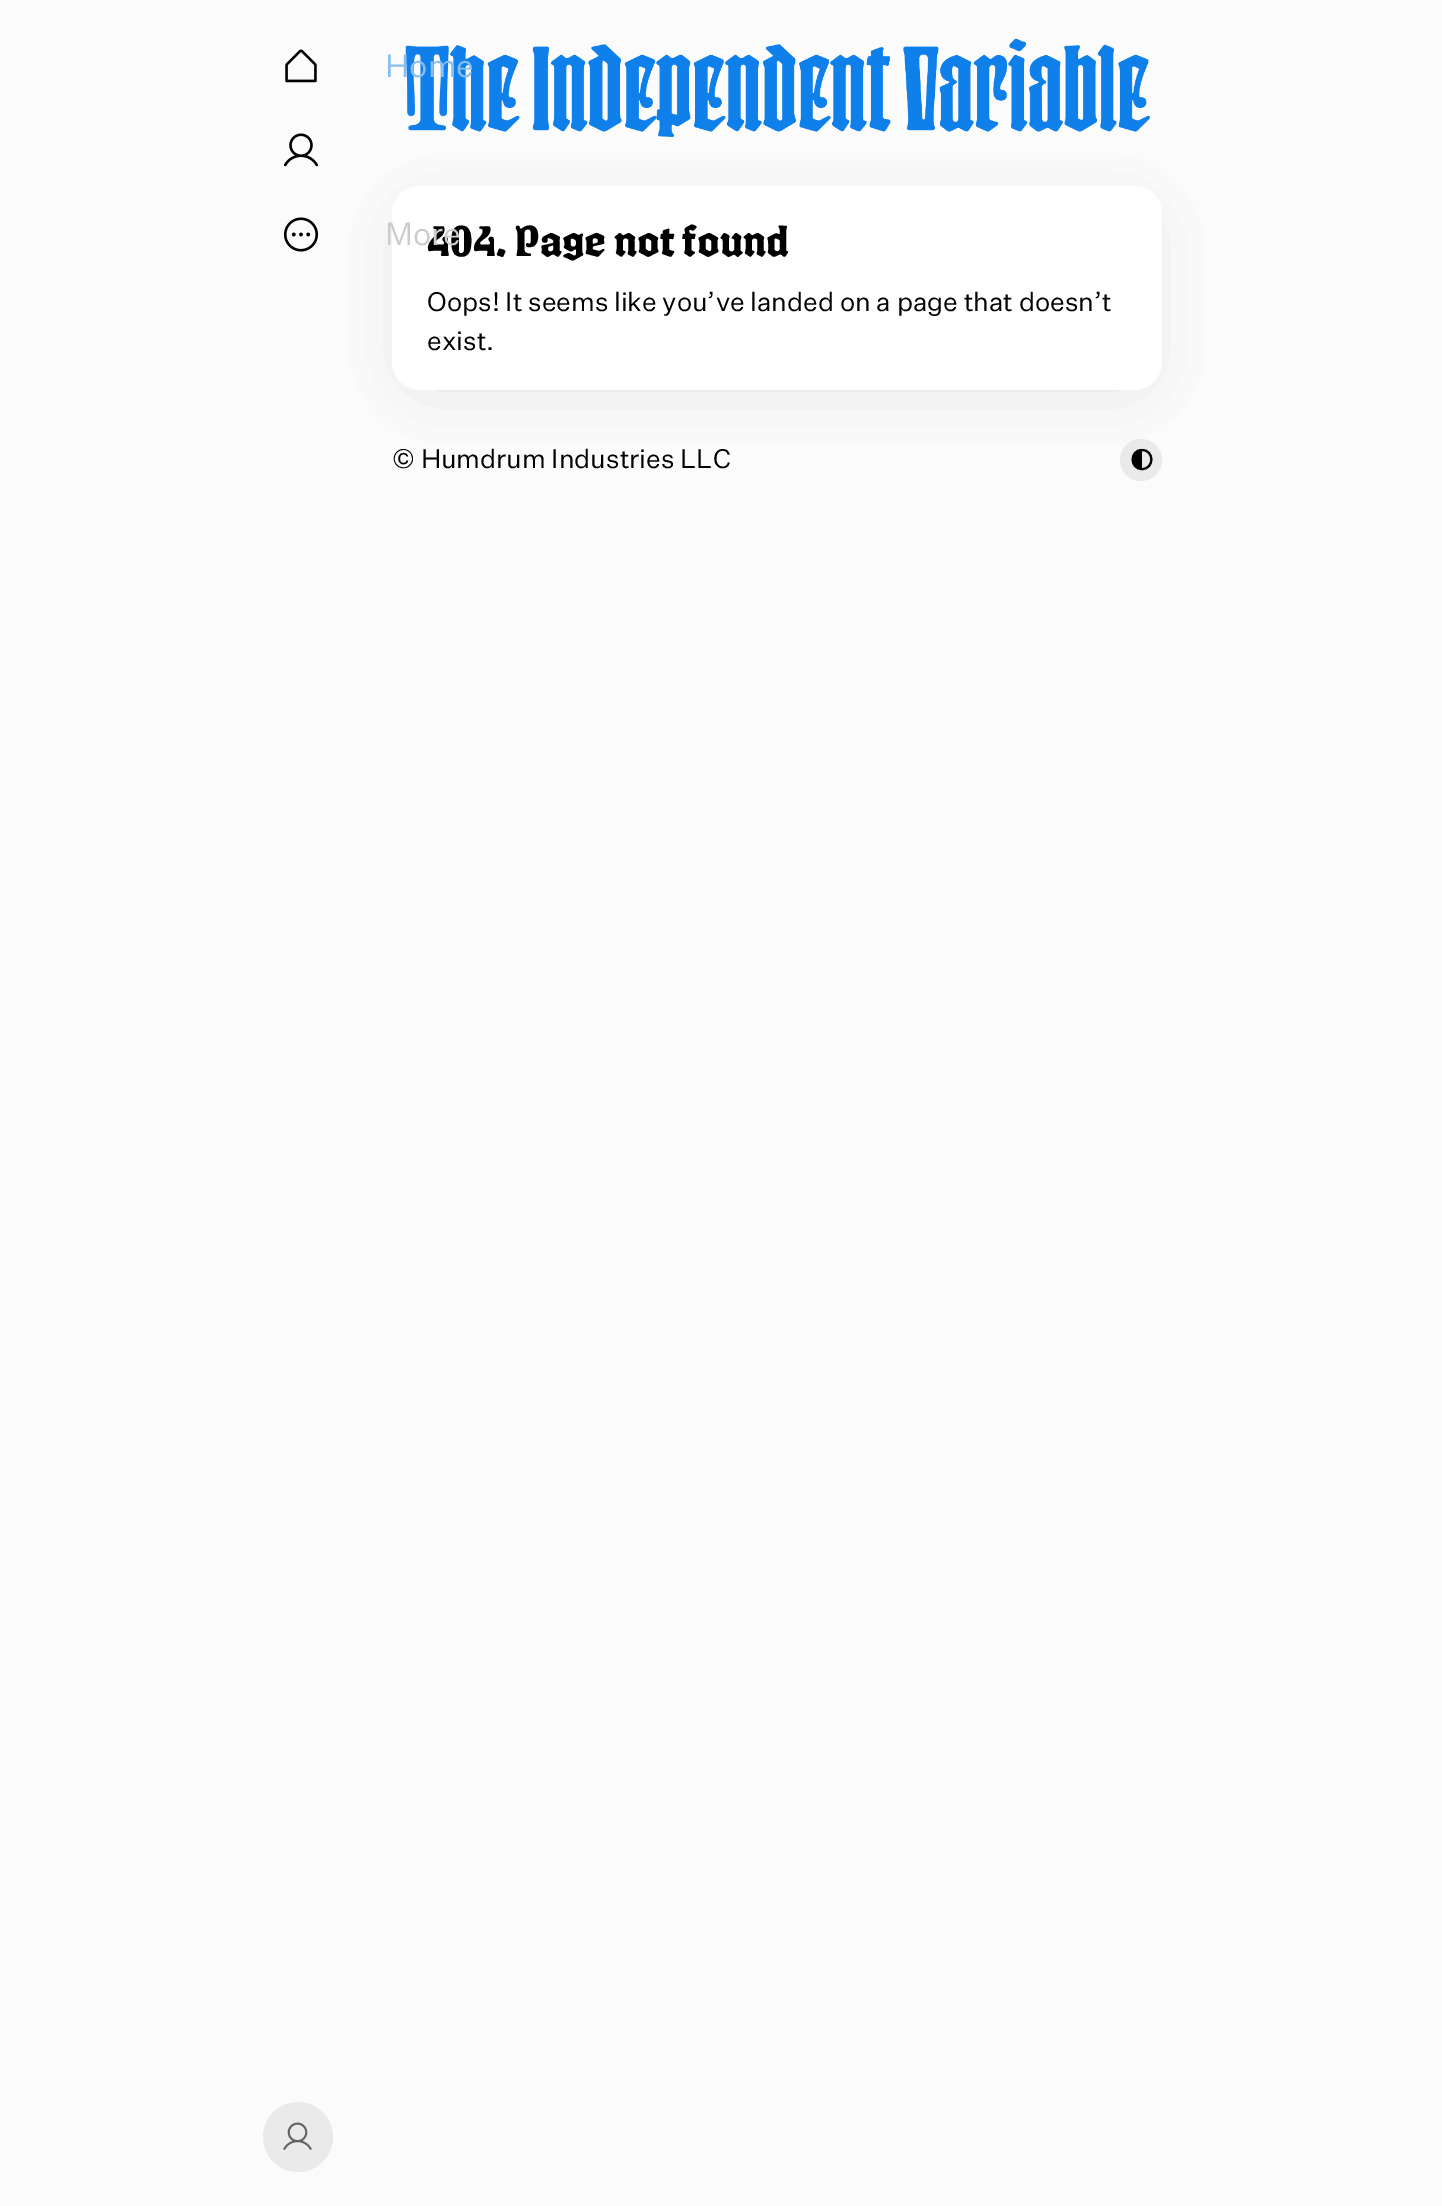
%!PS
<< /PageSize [1442 2206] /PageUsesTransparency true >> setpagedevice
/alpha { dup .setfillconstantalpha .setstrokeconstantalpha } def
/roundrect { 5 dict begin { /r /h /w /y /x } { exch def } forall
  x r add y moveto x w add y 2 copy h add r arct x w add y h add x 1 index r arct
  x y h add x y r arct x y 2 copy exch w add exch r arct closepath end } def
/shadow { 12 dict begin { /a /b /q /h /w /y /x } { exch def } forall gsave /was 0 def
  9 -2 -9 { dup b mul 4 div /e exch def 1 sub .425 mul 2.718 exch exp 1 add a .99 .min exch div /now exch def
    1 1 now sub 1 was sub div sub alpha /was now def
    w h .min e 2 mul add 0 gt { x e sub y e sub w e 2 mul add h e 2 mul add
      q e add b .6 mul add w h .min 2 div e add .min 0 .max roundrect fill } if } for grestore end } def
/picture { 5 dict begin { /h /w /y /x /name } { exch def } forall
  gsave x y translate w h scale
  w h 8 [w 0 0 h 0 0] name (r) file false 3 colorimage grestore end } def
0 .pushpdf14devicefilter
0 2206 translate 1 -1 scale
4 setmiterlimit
0.984 setgray
0 0 1442 2206 rectfill
(img1.rgb) 285 49 32 34 picture
(img5.rgb) 405 38 745 99 picture
/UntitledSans-Regular [31.5 0 0 -31.5 0 0] selectfont
0.533 0.749 0.953 setrgbcolor
385 77 moveto (Home) show
(img2.rgb) 284 133 34 34 picture
(img3.rgb) 283 217 36 35 picture
0.918 setgray
newpath 1141 460 21 0 360 arc closepath fill
0 setgray
427 231 700 135 0 35 0.2 shadow
1 setgray
392 186 770 204 28 roundrect fill
/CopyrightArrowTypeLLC-Bold [42 0 0 -42 0 0] selectfont
0 setgray
427 256 moveto (404. Page not found) show
/UntitledSans-Regular [31.5 0 0 -31.5 0 0] selectfont
0.8 setgray
385 245 moveto (More) show
0.918 setgray
newpath 298 2137 35 0 360 arc closepath fill
(img4.rgb) 283 2122 29 28 picture
/UntitledSans-Regular [26.25 0 0 -26.25 0 0] selectfont
0 setgray
427 311 moveto (Oops! It seems like you’ve landed on a page that doesn’t) show
427 350 moveto (exist.) show
392 468 moveto (© Humdrum Industries LLC) show
2.1 setlinewidth
1 setlinecap
1 setlinejoin
newpath 1142 469 moveto 1154.5 469 1154.5 450 1142 450 curveto 1129.5 450 1129.5 469 1142 469 curveto closepath stroke
newpath 1142 469 moveto 1129.5 469 1129.5 450 1142 450 curveto closepath fill
.poppdf14devicefilter showpage
